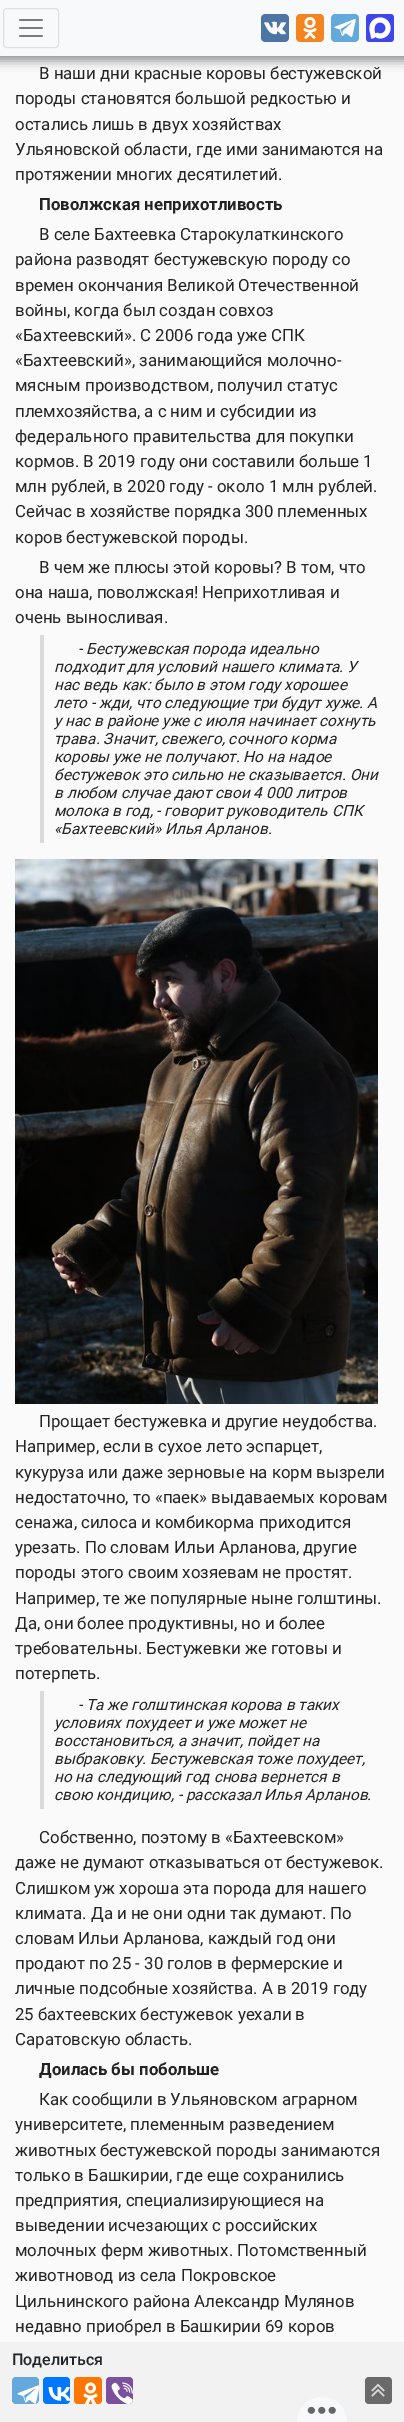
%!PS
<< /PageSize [404 2422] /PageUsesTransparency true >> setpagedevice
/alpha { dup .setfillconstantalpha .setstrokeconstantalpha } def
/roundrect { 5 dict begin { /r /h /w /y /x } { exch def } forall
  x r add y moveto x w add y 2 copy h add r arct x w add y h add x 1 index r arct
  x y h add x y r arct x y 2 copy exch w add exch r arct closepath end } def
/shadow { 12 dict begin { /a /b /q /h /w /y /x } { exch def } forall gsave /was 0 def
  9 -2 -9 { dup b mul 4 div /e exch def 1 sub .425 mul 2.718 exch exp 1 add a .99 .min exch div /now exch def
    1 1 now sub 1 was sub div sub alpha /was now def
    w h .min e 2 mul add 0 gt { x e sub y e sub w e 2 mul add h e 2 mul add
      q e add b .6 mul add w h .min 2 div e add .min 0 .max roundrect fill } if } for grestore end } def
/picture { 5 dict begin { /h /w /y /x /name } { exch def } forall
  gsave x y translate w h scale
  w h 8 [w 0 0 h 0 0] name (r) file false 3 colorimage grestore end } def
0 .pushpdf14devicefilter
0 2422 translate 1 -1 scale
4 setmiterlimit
0.98 setgray
0 0 404 2422 rectfill
0 setgray
-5 -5 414 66 0 5 0.4 shadow
0.973 0.976 0.98 setrgbcolor
0 0 404 56 rectfill
0.875 0.878 0.882 setrgbcolor
3.5 8.5 55 39 3.5 roundrect stroke
(img1.rgb) 19 19 24 18 picture
(img2.rgb) 261 14 28 28 picture
(img3.rgb) 296 14 28 28 picture
(img4.rgb) 331 14 28 28 picture
(img5.rgb) 366 14 28 28 picture
/Roboto-Regular [16.8 0 0 -16.8 0 0] selectfont
0.137 setgray
39 79 moveto (В наши дни красные коровы бестужевской) show
15 104 moveto (породы становятся большой редкостью и) show
15 130 moveto (остались лишь в двух хозяйствах) show
15 155 moveto (Ульяновской области, где ими занимаются на) show
15 180 moveto (протяжении многих десятилетий.) show
/Roboto-Bold [16.8 0 0 -16.8 0 0] selectfont
39 210 moveto (Поволжская неприхотливость) show
/Roboto-Regular [16.8 0 0 -16.8 0 0] selectfont
39 240 moveto (В селе Бахтеевка Старокулаткинского) show
15 265 moveto (района разводят бестужевскую породу со) show
15 291 moveto (времен окончания Великой Отечественной) show
15 316 moveto (войны, когда был создан совхоз) show
15 341 moveto («Бахтеевский». С 2006 года уже СПК) show
15 366 moveto («Бахтеевский», занимающийся молочно-) show
15 391 moveto (мясным производством, получил статус) show
15 417 moveto (племхозяйства, а с ним и субсидии из) show
15 442 moveto (федерального правительства для покупки) show
15 467 moveto (кормов. В 2019 году они составили больше 1) show
15 492 moveto (млн рублей, в 2020 году - около 1 млн рублей.) show
15 517 moveto (Сейчас в хозяйстве порядка 300 племенных) show
15 543 moveto (коров бестужевской породы.) show
39 573 moveto (В чем же плюсы этой коровы? В том, что) show
15 598 moveto (она наша, поволжская! Неприхотливая и) show
15 623 moveto (очень выносливая.) show
0.855 setgray
40 635 4 208 rectfill
/Roboto-Italic [15.4 0 0 -15.4 0 0] selectfont
0.137 setgray
78 654 moveto (- Бестужевская порода идеально) show
54 672 moveto (подходит для условий нашего климата. У) show
54 690 moveto (нас ведь как: было в этом году хорошее) show
54 708 moveto (лето - жди, что следующие три будут хуже. А) show
54 726 moveto (у нас в районе уже с июля начинает сохнуть) show
54 744 moveto (трава. Значит, свежего, сочного корма) show
54 762 moveto (коровы уже не получают. Но на надое) show
54 780 moveto (бестужевок это сильно не сказывается. Они) show
54 798 moveto (в любом случае дают свои 4 000 литров) show
54 816 moveto (молока в год, - говорит руководитель СПК) show
54 834 moveto («Бахтеевский» Илья Арланов.) show
(img6.rgb) 15 859 363 545 picture
/Roboto-Regular [16.8 0 0 -16.8 0 0] selectfont
39 1427 moveto (Прощает бестужевка и другие неудобства.) show
15 1452 moveto (Например, если в сухое лето эспарцет,) show
15 1478 moveto (кукуруза или даже зерновые на корм вызрели) show
15 1503 moveto (недостаточно, то «паек» выдаваемых коровам) show
15 1528 moveto (сенажа, силоса и комбикорма приходится) show
15 1553 moveto (урезать. По словам Ильи Арланова, другие) show
15 1578 moveto (породы этого своим хозяевам не простят.) show
15 1604 moveto (Например, те же популярные ныне голштины.) show
15 1629 moveto (Да, они более продуктивны, но и более) show
15 1654 moveto (требовательны. Бестужевки же готовы и) show
15 1679 moveto (потерпеть.) show
0.855 setgray
40 1691 4 118 rectfill
/Roboto-Italic [15.4 0 0 -15.4 0 0] selectfont
0.137 setgray
78 1710 moveto (- Та же голштинская корова в таких) show
54 1728 moveto (условиях похудеет и уже может не) show
54 1746 moveto (восстановиться, а значит, пойдет на) show
54 1764 moveto (выбраковку. Бестужевская тоже похудеет,) show
54 1782 moveto (но на следующий год снова вернется в) show
54 1800 moveto (свою кондицию, - рассказал Илья Арланов.) show
/Roboto-Regular [16.8 0 0 -16.8 0 0] selectfont
39 1843 moveto (Собственно, поэтому в «Бахтеевском») show
15 1868 moveto (даже не думают отказываться от бестужевок.) show
15 1894 moveto (Слишком уж хороша эта порода для нашего) show
15 1919 moveto (климата. Да и не они одни так думают. По) show
15 1944 moveto (словам Ильи Арланова, каждый год они) show
15 1969 moveto (продают по 25 - 30 голов в фермерские и) show
15 1994 moveto (личные подсобные хозяйства. А в 2019 году) show
15 2020 moveto (25 бахтеевских бестужевок уехали в) show
15 2045 moveto (Саратовскую область.) show
/Roboto-Bold [16.8 0 0 -16.8 0 0] selectfont
39 2075 moveto (Доилась бы побольше) show
/Roboto-Regular [16.8 0 0 -16.8 0 0] selectfont
39 2105 moveto (Как сообщили в Ульяновском аграрном) show
15 2130 moveto (университете, племенным разведением) show
15 2156 moveto (животных бестужевской породы занимаются) show
15 2181 moveto (только в Башкирии, где еще сохранились) show
15 2206 moveto (предприятия, специализирующиеся на) show
15 2231 moveto (выведении исчезающих с российских) show
15 2256 moveto (молочных ферм животных. Потомственный) show
15 2281 moveto (животновод из села Покровское) show
15 2307 moveto (Цильнинского района Александр Мулянов) show
15 2332 moveto (недавно приобрел в Башкирии 69 коров) show
0.949 setgray
0 2342 404 80 rectfill
/Roboto-Medium [16 0 0 -16 0 0] selectfont
0.129 0.145 0.161 setrgbcolor
12 2365 moveto (Поделиться) show
0.392 0.663 0.863 setrgbcolor
12 2377 27 27 4 roundrect fill
(img7.rgb) 17 2385 22 19 picture
0 0.467 1 setrgbcolor
43 2377 27 27 4 roundrect fill
(img8.rgb) 48 2387 22 14 picture
1 0.467 0 setrgbcolor
74 2377 28 27 4 roundrect fill
(img9.rgb) 83 2382 15 22 picture
0.482 0.318 0.616 setrgbcolor
106 2377 27 27 4 roundrect fill
(img10.rgb) 111 2382 22 22 picture
0.416 setgray
365 2377 27 27 4 roundrect fill
(img11.rgb) 371 2383 14 14 picture
0.973 0.976 0.98 setrgbcolor
newpath 322 2397 moveto 336 2397 347 2408 347 2422 curveto 347 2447 lineto 297 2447 lineto 297 2422 lineto 297 2408 308 2397 322 2397 curveto closepath fill
(img12.rgb) 307 2406 29 8 picture
.poppdf14devicefilter showpage
